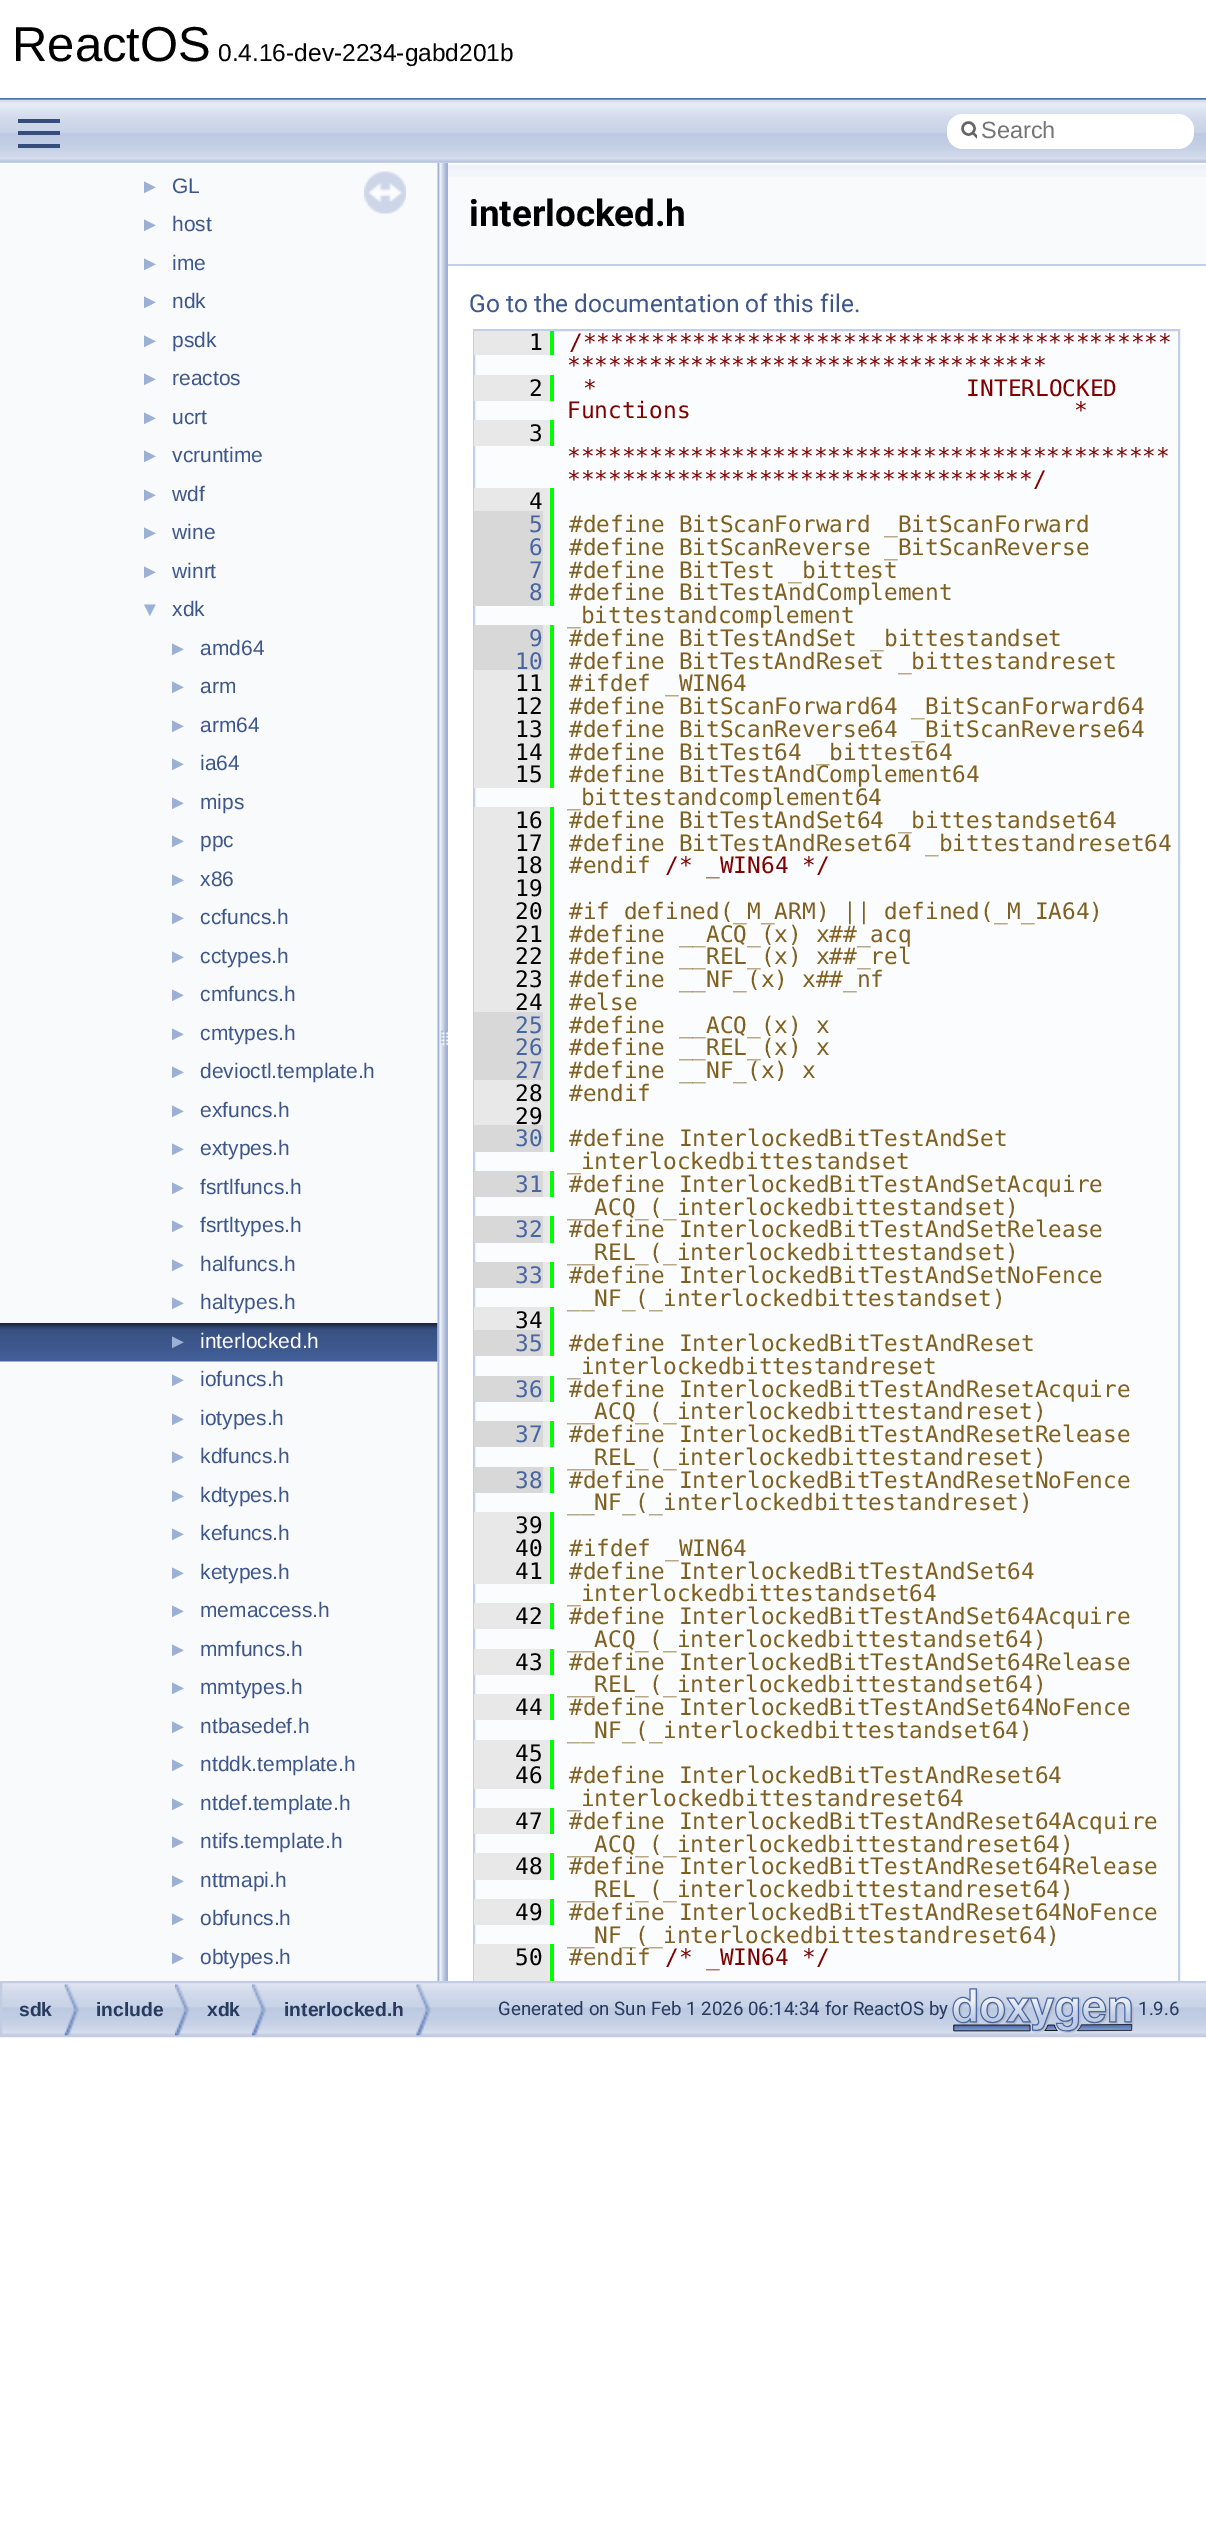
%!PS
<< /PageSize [1206 2541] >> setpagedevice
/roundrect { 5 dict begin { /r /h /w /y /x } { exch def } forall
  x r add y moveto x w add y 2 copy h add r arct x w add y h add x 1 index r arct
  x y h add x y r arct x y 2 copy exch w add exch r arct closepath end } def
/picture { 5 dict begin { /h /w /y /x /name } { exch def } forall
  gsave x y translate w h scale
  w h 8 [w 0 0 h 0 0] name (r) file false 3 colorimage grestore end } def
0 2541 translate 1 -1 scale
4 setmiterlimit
1 setgray
0 0 1206 2541 rectfill
0.325 0.451 0.706 setrgbcolor
0 98 1206 2 rectfill
/LiberationSans-Regular [49 0 0 -49 0 0] selectfont
0 setgray
12 61 moveto (ReactOS) show
/LiberationSans-Regular [24.5 0 0 -24.5 0 0] selectfont
218 61 moveto (0.4.16-dev-2234-gabd201b) show
0.976 0.98 0.988 setrgbcolor
0 163 438 1818 rectfill
(img2.rgb) 0 1323 438 39 picture
(img4.rgb) 437 162 11 1819 picture
(img1.rgb) 0 99 1206 64 picture
0.212 0.302 0.486 setrgbcolor
18 131 42 4 rectfill
18 119 42 4 rectfill
18 144 42 4 rectfill
1 setgray
947 114 247 35 16 roundrect fill
0.396 setgray
2.4 setlinewidth
newpath 968.5 128.5 6 0 360 arc closepath stroke
gsave
959 114 18 33 rectclip
1 setlinecap
newpath 973 133 moveto 978 138 lineto stroke
grestore
/LiberationSans-Regular [23.5 0 0 -23.5 0 0] selectfont
0.459 setgray
981 138 moveto (Search) show
/LiberationSans-Regular [20 0 0 -20 0 0] selectfont
0.612 0.686 0.831 setrgbcolor
140 193 moveto (►) show
/LiberationSans-Regular [21 0 0 -21 0 0] selectfont
0.239 0.341 0.549 setrgbcolor
172 193 moveto (GL) show
/LiberationSans-Regular [20 0 0 -20 0 0] selectfont
0.612 0.686 0.831 setrgbcolor
140 231 moveto (►) show
/LiberationSans-Regular [21 0 0 -21 0 0] selectfont
0.239 0.341 0.549 setrgbcolor
172 231 moveto (host) show
/LiberationSans-Regular [20 0 0 -20 0 0] selectfont
0.612 0.686 0.831 setrgbcolor
140 270 moveto (►) show
/LiberationSans-Regular [21 0 0 -21 0 0] selectfont
0.239 0.341 0.549 setrgbcolor
172 270 moveto (ime) show
/LiberationSans-Regular [20 0 0 -20 0 0] selectfont
0.612 0.686 0.831 setrgbcolor
140 308 moveto (►) show
/LiberationSans-Regular [21 0 0 -21 0 0] selectfont
0.239 0.341 0.549 setrgbcolor
172 308 moveto (ndk) show
/LiberationSans-Regular [20 0 0 -20 0 0] selectfont
0.612 0.686 0.831 setrgbcolor
140 347 moveto (►) show
/LiberationSans-Regular [21 0 0 -21 0 0] selectfont
0.239 0.341 0.549 setrgbcolor
172 347 moveto (psdk) show
/LiberationSans-Regular [20 0 0 -20 0 0] selectfont
0.612 0.686 0.831 setrgbcolor
140 385 moveto (►) show
/LiberationSans-Regular [21 0 0 -21 0 0] selectfont
0.239 0.341 0.549 setrgbcolor
172 385 moveto (reactos) show
/LiberationSans-Regular [20 0 0 -20 0 0] selectfont
0.612 0.686 0.831 setrgbcolor
140 424 moveto (►) show
/LiberationSans-Regular [21 0 0 -21 0 0] selectfont
0.239 0.341 0.549 setrgbcolor
172 424 moveto (ucrt) show
/LiberationSans-Regular [20 0 0 -20 0 0] selectfont
0.612 0.686 0.831 setrgbcolor
140 462 moveto (►) show
/LiberationSans-Regular [21 0 0 -21 0 0] selectfont
0.239 0.341 0.549 setrgbcolor
172 462 moveto (vcruntime) show
/LiberationSans-Regular [20 0 0 -20 0 0] selectfont
0.612 0.686 0.831 setrgbcolor
140 501 moveto (►) show
/LiberationSans-Regular [21 0 0 -21 0 0] selectfont
0.239 0.341 0.549 setrgbcolor
172 501 moveto (wdf) show
/LiberationSans-Regular [20 0 0 -20 0 0] selectfont
0.612 0.686 0.831 setrgbcolor
140 539 moveto (►) show
/LiberationSans-Regular [21 0 0 -21 0 0] selectfont
0.239 0.341 0.549 setrgbcolor
172 539 moveto (wine) show
/LiberationSans-Regular [20 0 0 -20 0 0] selectfont
0.612 0.686 0.831 setrgbcolor
140 578 moveto (►) show
/LiberationSans-Regular [21 0 0 -21 0 0] selectfont
0.239 0.341 0.549 setrgbcolor
172 578 moveto (winrt) show
/LiberationSans-Regular [20 0 0 -20 0 0] selectfont
0.612 0.686 0.831 setrgbcolor
140 616 moveto (▼) show
/LiberationSans-Regular [21 0 0 -21 0 0] selectfont
0.239 0.341 0.549 setrgbcolor
172 616 moveto (xdk) show
/LiberationSans-Regular [20 0 0 -20 0 0] selectfont
0.612 0.686 0.831 setrgbcolor
168 655 moveto (►) show
/LiberationSans-Regular [21 0 0 -21 0 0] selectfont
0.239 0.341 0.549 setrgbcolor
200 655 moveto (amd64) show
/LiberationSans-Regular [20 0 0 -20 0 0] selectfont
0.612 0.686 0.831 setrgbcolor
168 693 moveto (►) show
/LiberationSans-Regular [21 0 0 -21 0 0] selectfont
0.239 0.341 0.549 setrgbcolor
200 693 moveto (arm) show
/LiberationSans-Regular [20 0 0 -20 0 0] selectfont
0.612 0.686 0.831 setrgbcolor
168 732 moveto (►) show
/LiberationSans-Regular [21 0 0 -21 0 0] selectfont
0.239 0.341 0.549 setrgbcolor
200 732 moveto (arm64) show
/LiberationSans-Regular [20 0 0 -20 0 0] selectfont
0.612 0.686 0.831 setrgbcolor
168 770 moveto (►) show
/LiberationSans-Regular [21 0 0 -21 0 0] selectfont
0.239 0.341 0.549 setrgbcolor
200 770 moveto (ia64) show
/LiberationSans-Regular [20 0 0 -20 0 0] selectfont
0.612 0.686 0.831 setrgbcolor
168 809 moveto (►) show
/LiberationSans-Regular [21 0 0 -21 0 0] selectfont
0.239 0.341 0.549 setrgbcolor
200 809 moveto (mips) show
/LiberationSans-Regular [20 0 0 -20 0 0] selectfont
0.612 0.686 0.831 setrgbcolor
168 847 moveto (►) show
/LiberationSans-Regular [21 0 0 -21 0 0] selectfont
0.239 0.341 0.549 setrgbcolor
200 847 moveto (ppc) show
/LiberationSans-Regular [20 0 0 -20 0 0] selectfont
0.612 0.686 0.831 setrgbcolor
168 886 moveto (►) show
/LiberationSans-Regular [21 0 0 -21 0 0] selectfont
0.239 0.341 0.549 setrgbcolor
200 886 moveto (x86) show
/LiberationSans-Regular [20 0 0 -20 0 0] selectfont
0.612 0.686 0.831 setrgbcolor
168 924 moveto (►) show
/LiberationSans-Regular [21 0 0 -21 0 0] selectfont
0.239 0.341 0.549 setrgbcolor
200 924 moveto (ccfuncs.h) show
/LiberationSans-Regular [20 0 0 -20 0 0] selectfont
0.612 0.686 0.831 setrgbcolor
168 963 moveto (►) show
/LiberationSans-Regular [21 0 0 -21 0 0] selectfont
0.239 0.341 0.549 setrgbcolor
200 963 moveto (cctypes.h) show
/LiberationSans-Regular [20 0 0 -20 0 0] selectfont
0.612 0.686 0.831 setrgbcolor
168 1001 moveto (►) show
/LiberationSans-Regular [21 0 0 -21 0 0] selectfont
0.239 0.341 0.549 setrgbcolor
200 1001 moveto (cmfuncs.h) show
/LiberationSans-Regular [20 0 0 -20 0 0] selectfont
0.612 0.686 0.831 setrgbcolor
168 1040 moveto (►) show
/LiberationSans-Regular [21 0 0 -21 0 0] selectfont
0.239 0.341 0.549 setrgbcolor
200 1040 moveto (cmtypes.h) show
/LiberationSans-Regular [20 0 0 -20 0 0] selectfont
0.612 0.686 0.831 setrgbcolor
168 1078 moveto (►) show
/LiberationSans-Regular [21 0 0 -21 0 0] selectfont
0.239 0.341 0.549 setrgbcolor
200 1078 moveto (devioctl.template.h) show
/LiberationSans-Regular [20 0 0 -20 0 0] selectfont
0.612 0.686 0.831 setrgbcolor
168 1117 moveto (►) show
/LiberationSans-Regular [21 0 0 -21 0 0] selectfont
0.239 0.341 0.549 setrgbcolor
200 1117 moveto (exfuncs.h) show
/LiberationSans-Regular [20 0 0 -20 0 0] selectfont
0.612 0.686 0.831 setrgbcolor
168 1155 moveto (►) show
/LiberationSans-Regular [21 0 0 -21 0 0] selectfont
0.239 0.341 0.549 setrgbcolor
200 1155 moveto (extypes.h) show
/LiberationSans-Regular [20 0 0 -20 0 0] selectfont
0.612 0.686 0.831 setrgbcolor
168 1194 moveto (►) show
/LiberationSans-Regular [21 0 0 -21 0 0] selectfont
0.239 0.341 0.549 setrgbcolor
200 1194 moveto (fsrtlfuncs.h) show
/LiberationSans-Regular [20 0 0 -20 0 0] selectfont
0.612 0.686 0.831 setrgbcolor
168 1232 moveto (►) show
/LiberationSans-Regular [21 0 0 -21 0 0] selectfont
0.239 0.341 0.549 setrgbcolor
200 1232 moveto (fsrtltypes.h) show
/LiberationSans-Regular [20 0 0 -20 0 0] selectfont
0.612 0.686 0.831 setrgbcolor
168 1271 moveto (►) show
/LiberationSans-Regular [21 0 0 -21 0 0] selectfont
0.239 0.341 0.549 setrgbcolor
200 1271 moveto (halfuncs.h) show
/LiberationSans-Regular [20 0 0 -20 0 0] selectfont
0.612 0.686 0.831 setrgbcolor
168 1309 moveto (►) show
/LiberationSans-Regular [21 0 0 -21 0 0] selectfont
0.239 0.341 0.549 setrgbcolor
200 1309 moveto (haltypes.h) show
/LiberationSans-Regular [20 0 0 -20 0 0] selectfont
0.612 0.686 0.831 setrgbcolor
168 1348 moveto (►) show
/LiberationSans-Regular [21 0 0 -21 0 0] selectfont
1 setgray
200 1348 moveto (interlocked.h) show
/LiberationSans-Regular [20 0 0 -20 0 0] selectfont
0.612 0.686 0.831 setrgbcolor
168 1386 moveto (►) show
/LiberationSans-Regular [21 0 0 -21 0 0] selectfont
0.239 0.341 0.549 setrgbcolor
200 1386 moveto (iofuncs.h) show
/LiberationSans-Regular [20 0 0 -20 0 0] selectfont
0.612 0.686 0.831 setrgbcolor
168 1425 moveto (►) show
/LiberationSans-Regular [21 0 0 -21 0 0] selectfont
0.239 0.341 0.549 setrgbcolor
200 1425 moveto (iotypes.h) show
/LiberationSans-Regular [20 0 0 -20 0 0] selectfont
0.612 0.686 0.831 setrgbcolor
168 1463 moveto (►) show
/LiberationSans-Regular [21 0 0 -21 0 0] selectfont
0.239 0.341 0.549 setrgbcolor
200 1463 moveto (kdfuncs.h) show
/LiberationSans-Regular [20 0 0 -20 0 0] selectfont
0.612 0.686 0.831 setrgbcolor
168 1502 moveto (►) show
/LiberationSans-Regular [21 0 0 -21 0 0] selectfont
0.239 0.341 0.549 setrgbcolor
200 1502 moveto (kdtypes.h) show
/LiberationSans-Regular [20 0 0 -20 0 0] selectfont
0.612 0.686 0.831 setrgbcolor
168 1540 moveto (►) show
/LiberationSans-Regular [21 0 0 -21 0 0] selectfont
0.239 0.341 0.549 setrgbcolor
200 1540 moveto (kefuncs.h) show
/LiberationSans-Regular [20 0 0 -20 0 0] selectfont
0.612 0.686 0.831 setrgbcolor
168 1579 moveto (►) show
/LiberationSans-Regular [21 0 0 -21 0 0] selectfont
0.239 0.341 0.549 setrgbcolor
200 1579 moveto (ketypes.h) show
/LiberationSans-Regular [20 0 0 -20 0 0] selectfont
0.612 0.686 0.831 setrgbcolor
168 1617 moveto (►) show
/LiberationSans-Regular [21 0 0 -21 0 0] selectfont
0.239 0.341 0.549 setrgbcolor
200 1617 moveto (memaccess.h) show
/LiberationSans-Regular [20 0 0 -20 0 0] selectfont
0.612 0.686 0.831 setrgbcolor
168 1656 moveto (►) show
/LiberationSans-Regular [21 0 0 -21 0 0] selectfont
0.239 0.341 0.549 setrgbcolor
200 1656 moveto (mmfuncs.h) show
/LiberationSans-Regular [20 0 0 -20 0 0] selectfont
0.612 0.686 0.831 setrgbcolor
168 1694 moveto (►) show
/LiberationSans-Regular [21 0 0 -21 0 0] selectfont
0.239 0.341 0.549 setrgbcolor
200 1694 moveto (mmtypes.h) show
/LiberationSans-Regular [20 0 0 -20 0 0] selectfont
0.612 0.686 0.831 setrgbcolor
168 1733 moveto (►) show
/LiberationSans-Regular [21 0 0 -21 0 0] selectfont
0.239 0.341 0.549 setrgbcolor
200 1733 moveto (ntbasedef.h) show
/LiberationSans-Regular [20 0 0 -20 0 0] selectfont
0.612 0.686 0.831 setrgbcolor
168 1771 moveto (►) show
/LiberationSans-Regular [21 0 0 -21 0 0] selectfont
0.239 0.341 0.549 setrgbcolor
200 1771 moveto (ntddk.template.h) show
/LiberationSans-Regular [20 0 0 -20 0 0] selectfont
0.612 0.686 0.831 setrgbcolor
168 1810 moveto (►) show
/LiberationSans-Regular [21 0 0 -21 0 0] selectfont
0.239 0.341 0.549 setrgbcolor
200 1810 moveto (ntdef.template.h) show
/LiberationSans-Regular [20 0 0 -20 0 0] selectfont
0.612 0.686 0.831 setrgbcolor
168 1848 moveto (►) show
/LiberationSans-Regular [21 0 0 -21 0 0] selectfont
0.239 0.341 0.549 setrgbcolor
200 1848 moveto (ntifs.template.h) show
/LiberationSans-Regular [20 0 0 -20 0 0] selectfont
0.612 0.686 0.831 setrgbcolor
168 1887 moveto (►) show
/LiberationSans-Regular [21 0 0 -21 0 0] selectfont
0.239 0.341 0.549 setrgbcolor
200 1887 moveto (nttmapi.h) show
/LiberationSans-Regular [20 0 0 -20 0 0] selectfont
0.612 0.686 0.831 setrgbcolor
168 1925 moveto (►) show
/LiberationSans-Regular [21 0 0 -21 0 0] selectfont
0.239 0.341 0.549 setrgbcolor
200 1925 moveto (obfuncs.h) show
/LiberationSans-Regular [20 0 0 -20 0 0] selectfont
0.612 0.686 0.831 setrgbcolor
168 1964 moveto (►) show
/LiberationSans-Regular [21 0 0 -21 0 0] selectfont
0.239 0.341 0.549 setrgbcolor
200 1964 moveto (obtypes.h) show
(img3.rgb) 364 171 42 43 picture
0.976 0.98 0.988 setrgbcolor
448 177 758 87 rectfill
(img5.rgb) 448 163 758 14 picture
0.769 0.812 0.898 setrgbcolor
448 264 758 2 rectfill
/Roboto-Bold [36.75 0 0 -36.75 0 0] selectfont
0 setgray
469 226 moveto (interlocked.h) show
/Roboto-Regular [24.5 0 0 -24.5 0 0] selectfont
0.239 0.341 0.549 setrgbcolor
469 312 moveto (Go to the documentation of this file.) show
0.984 0.988 0.992 setrgbcolor
475 331 703 1650 rectfill
gsave
448 163 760 1818 rectclip
0.769 0.812 0.898 setrgbcolor
2 setlinewidth
474 330 705 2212 rectstroke
grestore
0.91 setgray
474 331 76 24 rectfill
/DejaVuSansMono-Regular [22.75 0 0 -22.75 0 0] selectfont
0 setgray
529 350 moveto (1) show
0 1 0 setrgbcolor
550 331 4 24 rectfill
0.502 0 0 setrgbcolor
569 350 moveto (/*******************************************) show
567 373 moveto (***********************************) show
0.91 setgray
474 375 76 26 rectfill
0 setgray
529 396 moveto (2) show
0 1 0 setrgbcolor
550 375 4 26 rectfill
0.502 0 0 setrgbcolor
583 396 moveto (*                           INTERLOCKED) show
567 418 moveto (Functions                            *) show
0.91 setgray
474 420 76 26 rectfill
0 setgray
529 441 moveto (3) show
0 1 0 setrgbcolor
550 420 4 26 rectfill
0.502 0 0 setrgbcolor
567 464 moveto (********************************************) show
567 487 moveto (**********************************/) show
0.91 setgray
474 488 76 23 rectfill
0 setgray
529 509 moveto (4) show
0 1 0 setrgbcolor
550 488 4 118 rectfill
0.847 setgray
474 511 69 95 rectfill
0.275 0.396 0.635 setrgbcolor
529 532 moveto (5) show
0.91 setgray
543 511 7 95 rectfill
0.502 0.376 0.125 setrgbcolor
569 532 moveto (#define BitScanForward _BitScanForward) show
0.275 0.396 0.635 setrgbcolor
529 555 moveto (6) show
0.502 0.376 0.125 setrgbcolor
569 555 moveto (#define BitScanReverse _BitScanReverse) show
0.275 0.396 0.635 setrgbcolor
529 578 moveto (7) show
0.502 0.376 0.125 setrgbcolor
569 578 moveto (#define BitTest _bittest) show
0.275 0.396 0.635 setrgbcolor
529 600 moveto (8) show
0.502 0.376 0.125 setrgbcolor
569 600 moveto (#define BitTestAndComplement) show
567 623 moveto (_bittestandcomplement) show
0.847 setgray
474 625 69 45 rectfill
0.275 0.396 0.635 setrgbcolor
529 646 moveto (9) show
0.91 setgray
543 625 7 45 rectfill
0 1 0 setrgbcolor
550 625 4 163 rectfill
0.502 0.376 0.125 setrgbcolor
569 646 moveto (#define BitTestAndSet _bittestandset) show
0.275 0.396 0.635 setrgbcolor
515 669 moveto (10) show
0.502 0.376 0.125 setrgbcolor
569 669 moveto (#define BitTestAndReset _bittestandreset) show
0.91 setgray
474 670 76 118 rectfill
0 setgray
515 691 moveto (11) show
0.502 0.376 0.125 setrgbcolor
569 691 moveto (#ifdef _WIN64) show
0 setgray
515 714 moveto (12) show
0.502 0.376 0.125 setrgbcolor
569 714 moveto (#define BitScanForward64 _BitScanForward64) show
0 setgray
515 737 moveto (13) show
0.502 0.376 0.125 setrgbcolor
569 737 moveto (#define BitScanReverse64 _BitScanReverse64) show
0 setgray
515 760 moveto (14) show
0.502 0.376 0.125 setrgbcolor
569 760 moveto (#define BitTest64 _bittest64) show
0 setgray
515 782 moveto (15) show
0.502 0.376 0.125 setrgbcolor
569 782 moveto (#define BitTestAndComplement64) show
567 805 moveto (_bittestandcomplement64) show
0.91 setgray
474 807 76 205 rectfill
0 setgray
515 828 moveto (16) show
0 1 0 setrgbcolor
550 807 4 345 rectfill
0.502 0.376 0.125 setrgbcolor
569 828 moveto (#define BitTestAndSet64 _bittestandset64) show
0 setgray
515 851 moveto (17) show
0.502 0.376 0.125 setrgbcolor
569 851 moveto (#define BitTestAndReset64 _bittestandreset64) show
0 setgray
515 873 moveto (18) show
0.502 0.376 0.125 setrgbcolor
569 873 moveto (#endif) show
0.502 0 0 setrgbcolor
665 873 moveto (/* _WIN64 */) show
0 setgray
515 896 moveto (19) show
515 919 moveto (20) show
0.502 0.376 0.125 setrgbcolor
569 919 moveto (#if defined\(_M_ARM\) || defined\(_M_IA64\)) show
0 setgray
515 942 moveto (21) show
0.502 0.376 0.125 setrgbcolor
569 942 moveto (#define __ACQ_\(x\) x##_acq) show
0 setgray
515 964 moveto (22) show
0.502 0.376 0.125 setrgbcolor
569 964 moveto (#define __REL_\(x\) x##_rel) show
0 setgray
515 987 moveto (23) show
0.502 0.376 0.125 setrgbcolor
569 987 moveto (#define __NF_\(x\) x##_nf) show
0 setgray
515 1010 moveto (24) show
0.502 0.376 0.125 setrgbcolor
569 1010 moveto (#else) show
0.847 setgray
474 1012 69 68 rectfill
0.275 0.396 0.635 setrgbcolor
515 1033 moveto (25) show
0.91 setgray
543 1012 7 68 rectfill
0.502 0.376 0.125 setrgbcolor
569 1033 moveto (#define __ACQ_\(x\) x) show
0.275 0.396 0.635 setrgbcolor
515 1055 moveto (26) show
0.502 0.376 0.125 setrgbcolor
569 1055 moveto (#define __REL_\(x\) x) show
0.275 0.396 0.635 setrgbcolor
515 1078 moveto (27) show
0.502 0.376 0.125 setrgbcolor
569 1078 moveto (#define __NF_\(x\) x) show
0.91 setgray
474 1080 76 45 rectfill
0 setgray
515 1101 moveto (28) show
0.502 0.376 0.125 setrgbcolor
569 1101 moveto (#endif) show
0 setgray
515 1124 moveto (29) show
0.847 setgray
474 1125 69 27 rectfill
0.275 0.396 0.635 setrgbcolor
515 1146 moveto (30) show
0.91 setgray
543 1125 7 27 rectfill
0.502 0.376 0.125 setrgbcolor
569 1146 moveto (#define InterlockedBitTestAndSet) show
567 1169 moveto (_interlockedbittestandset) show
0.847 setgray
474 1171 69 26 rectfill
0.275 0.396 0.635 setrgbcolor
515 1192 moveto (31) show
0.91 setgray
543 1171 7 26 rectfill
0 1 0 setrgbcolor
550 1171 4 26 rectfill
0.502 0.376 0.125 setrgbcolor
569 1192 moveto (#define InterlockedBitTestAndSetAcquire) show
567 1215 moveto (__ACQ_\(_interlockedbittestandset\)) show
0.847 setgray
474 1216 69 27 rectfill
0.275 0.396 0.635 setrgbcolor
515 1237 moveto (32) show
0.91 setgray
543 1216 7 27 rectfill
0 1 0 setrgbcolor
550 1216 4 27 rectfill
0.502 0.376 0.125 setrgbcolor
569 1237 moveto (#define InterlockedBitTestAndSetRelease) show
567 1260 moveto (__REL_\(_interlockedbittestandset\)) show
0.847 setgray
474 1262 69 26 rectfill
0.275 0.396 0.635 setrgbcolor
515 1283 moveto (33) show
0.91 setgray
543 1262 7 26 rectfill
0 1 0 setrgbcolor
550 1262 4 26 rectfill
0.502 0.376 0.125 setrgbcolor
569 1283 moveto (#define InterlockedBitTestAndSetNoFence) show
567 1306 moveto (__NF_\(_interlockedbittestandset\)) show
0.91 setgray
474 1307 76 23 rectfill
0 setgray
515 1328 moveto (34) show
0 1 0 setrgbcolor
550 1307 4 49 rectfill
0.847 setgray
474 1330 69 26 rectfill
0.275 0.396 0.635 setrgbcolor
515 1351 moveto (35) show
0.91 setgray
543 1330 7 26 rectfill
0.502 0.376 0.125 setrgbcolor
569 1351 moveto (#define InterlockedBitTestAndReset) show
567 1374 moveto (_interlockedbittestandreset) show
0.847 setgray
474 1376 69 26 rectfill
0.275 0.396 0.635 setrgbcolor
515 1397 moveto (36) show
0.91 setgray
543 1376 7 26 rectfill
0 1 0 setrgbcolor
550 1376 4 26 rectfill
0.502 0.376 0.125 setrgbcolor
569 1397 moveto (#define InterlockedBitTestAndResetAcquire) show
567 1419 moveto (__ACQ_\(_interlockedbittestandreset\)) show
0.847 setgray
474 1421 69 26 rectfill
0.275 0.396 0.635 setrgbcolor
515 1442 moveto (37) show
0.91 setgray
543 1421 7 26 rectfill
0 1 0 setrgbcolor
550 1421 4 26 rectfill
0.502 0.376 0.125 setrgbcolor
569 1442 moveto (#define InterlockedBitTestAndResetRelease) show
567 1465 moveto (__REL_\(_interlockedbittestandreset\)) show
0.847 setgray
474 1467 69 26 rectfill
0.275 0.396 0.635 setrgbcolor
515 1488 moveto (38) show
0.91 setgray
543 1467 7 26 rectfill
0 1 0 setrgbcolor
550 1467 4 26 rectfill
0.502 0.376 0.125 setrgbcolor
569 1488 moveto (#define InterlockedBitTestAndResetNoFence) show
567 1510 moveto (__NF_\(_interlockedbittestandreset\)) show
0.91 setgray
474 1512 76 72 rectfill
0 setgray
515 1533 moveto (39) show
0 1 0 setrgbcolor
550 1512 4 72 rectfill
0 setgray
515 1556 moveto (40) show
0.502 0.376 0.125 setrgbcolor
569 1556 moveto (#ifdef _WIN64) show
0 setgray
515 1579 moveto (41) show
0.502 0.376 0.125 setrgbcolor
569 1579 moveto (#define InterlockedBitTestAndSet64) show
567 1601 moveto (_interlockedbittestandset64) show
0.91 setgray
474 1603 76 26 rectfill
0 setgray
515 1624 moveto (42) show
0 1 0 setrgbcolor
550 1603 4 26 rectfill
0.502 0.376 0.125 setrgbcolor
569 1624 moveto (#define InterlockedBitTestAndSet64Acquire) show
567 1647 moveto (__ACQ_\(_interlockedbittestandset64\)) show
0.91 setgray
474 1649 76 26 rectfill
0 setgray
515 1670 moveto (43) show
0 1 0 setrgbcolor
550 1649 4 26 rectfill
0.502 0.376 0.125 setrgbcolor
569 1670 moveto (#define InterlockedBitTestAndSet64Release) show
567 1692 moveto (__REL_\(_interlockedbittestandset64\)) show
0.91 setgray
474 1694 76 26 rectfill
0 setgray
515 1715 moveto (44) show
0 1 0 setrgbcolor
550 1694 4 26 rectfill
0.502 0.376 0.125 setrgbcolor
569 1715 moveto (#define InterlockedBitTestAndSet64NoFence) show
567 1738 moveto (__NF_\(_interlockedbittestandset64\)) show
0.91 setgray
474 1740 76 49 rectfill
0 setgray
515 1761 moveto (45) show
0 1 0 setrgbcolor
550 1740 4 49 rectfill
0 setgray
515 1783 moveto (46) show
0.502 0.376 0.125 setrgbcolor
569 1783 moveto (#define InterlockedBitTestAndReset64) show
567 1806 moveto (_interlockedbittestandreset64) show
0.91 setgray
474 1808 76 26 rectfill
0 setgray
515 1829 moveto (47) show
0 1 0 setrgbcolor
550 1808 4 26 rectfill
0.502 0.376 0.125 setrgbcolor
569 1829 moveto (#define InterlockedBitTestAndReset64Acquire) show
567 1852 moveto (__ACQ_\(_interlockedbittestandreset64\)) show
0.91 setgray
474 1853 76 27 rectfill
0 setgray
515 1874 moveto (48) show
0 1 0 setrgbcolor
550 1853 4 27 rectfill
0.502 0.376 0.125 setrgbcolor
569 1874 moveto (#define InterlockedBitTestAndReset64Release) show
567 1897 moveto (__REL_\(_interlockedbittestandreset64\)) show
0.91 setgray
474 1899 76 26 rectfill
0 setgray
515 1920 moveto (49) show
0 1 0 setrgbcolor
550 1899 4 26 rectfill
0.502 0.376 0.125 setrgbcolor
569 1920 moveto (#define InterlockedBitTestAndReset64NoFence) show
567 1943 moveto (__NF_\(_interlockedbittestandreset64\)) show
0.91 setgray
474 1944 76 37 rectfill
0 setgray
515 1965 moveto (50) show
0 1 0 setrgbcolor
550 1944 4 37 rectfill
0.502 0.376 0.125 setrgbcolor
569 1965 moveto (#endif) show
0.502 0 0 setrgbcolor
665 1965 moveto (/* _WIN64 */) show
(img6.rgb) 2 1983 1204 52 picture
0.761 0.804 0.894 setrgbcolor
2 setlinewidth
1 1982 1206 54 rectstroke
(img7.rgb) 64 1984 15 52 picture
/LiberationSans-Bold [19.25 0 0 -19.25 0 0] selectfont
0.157 0.227 0.365 setrgbcolor
19 2016 moveto (sdk) show
(img8.rgb) 175 1984 14 52 picture
96 2016 moveto (include) show
(img9.rgb) 252 1984 14 52 picture
207 2016 moveto (xdk) show
(img10.rgb) 416 1984 15 52 picture
284 2016 moveto (interlocked.h) show
/Roboto-Regular [18.7 0 0 -18.7 0 0] selectfont
498 2015 moveto (Generated on Sun Feb 1 2026 06:14:34 for ReactOS by) show
(img11.rgb) 952 1988 182 46 picture
1138 2015 moveto (1.9.6) show
showpage
